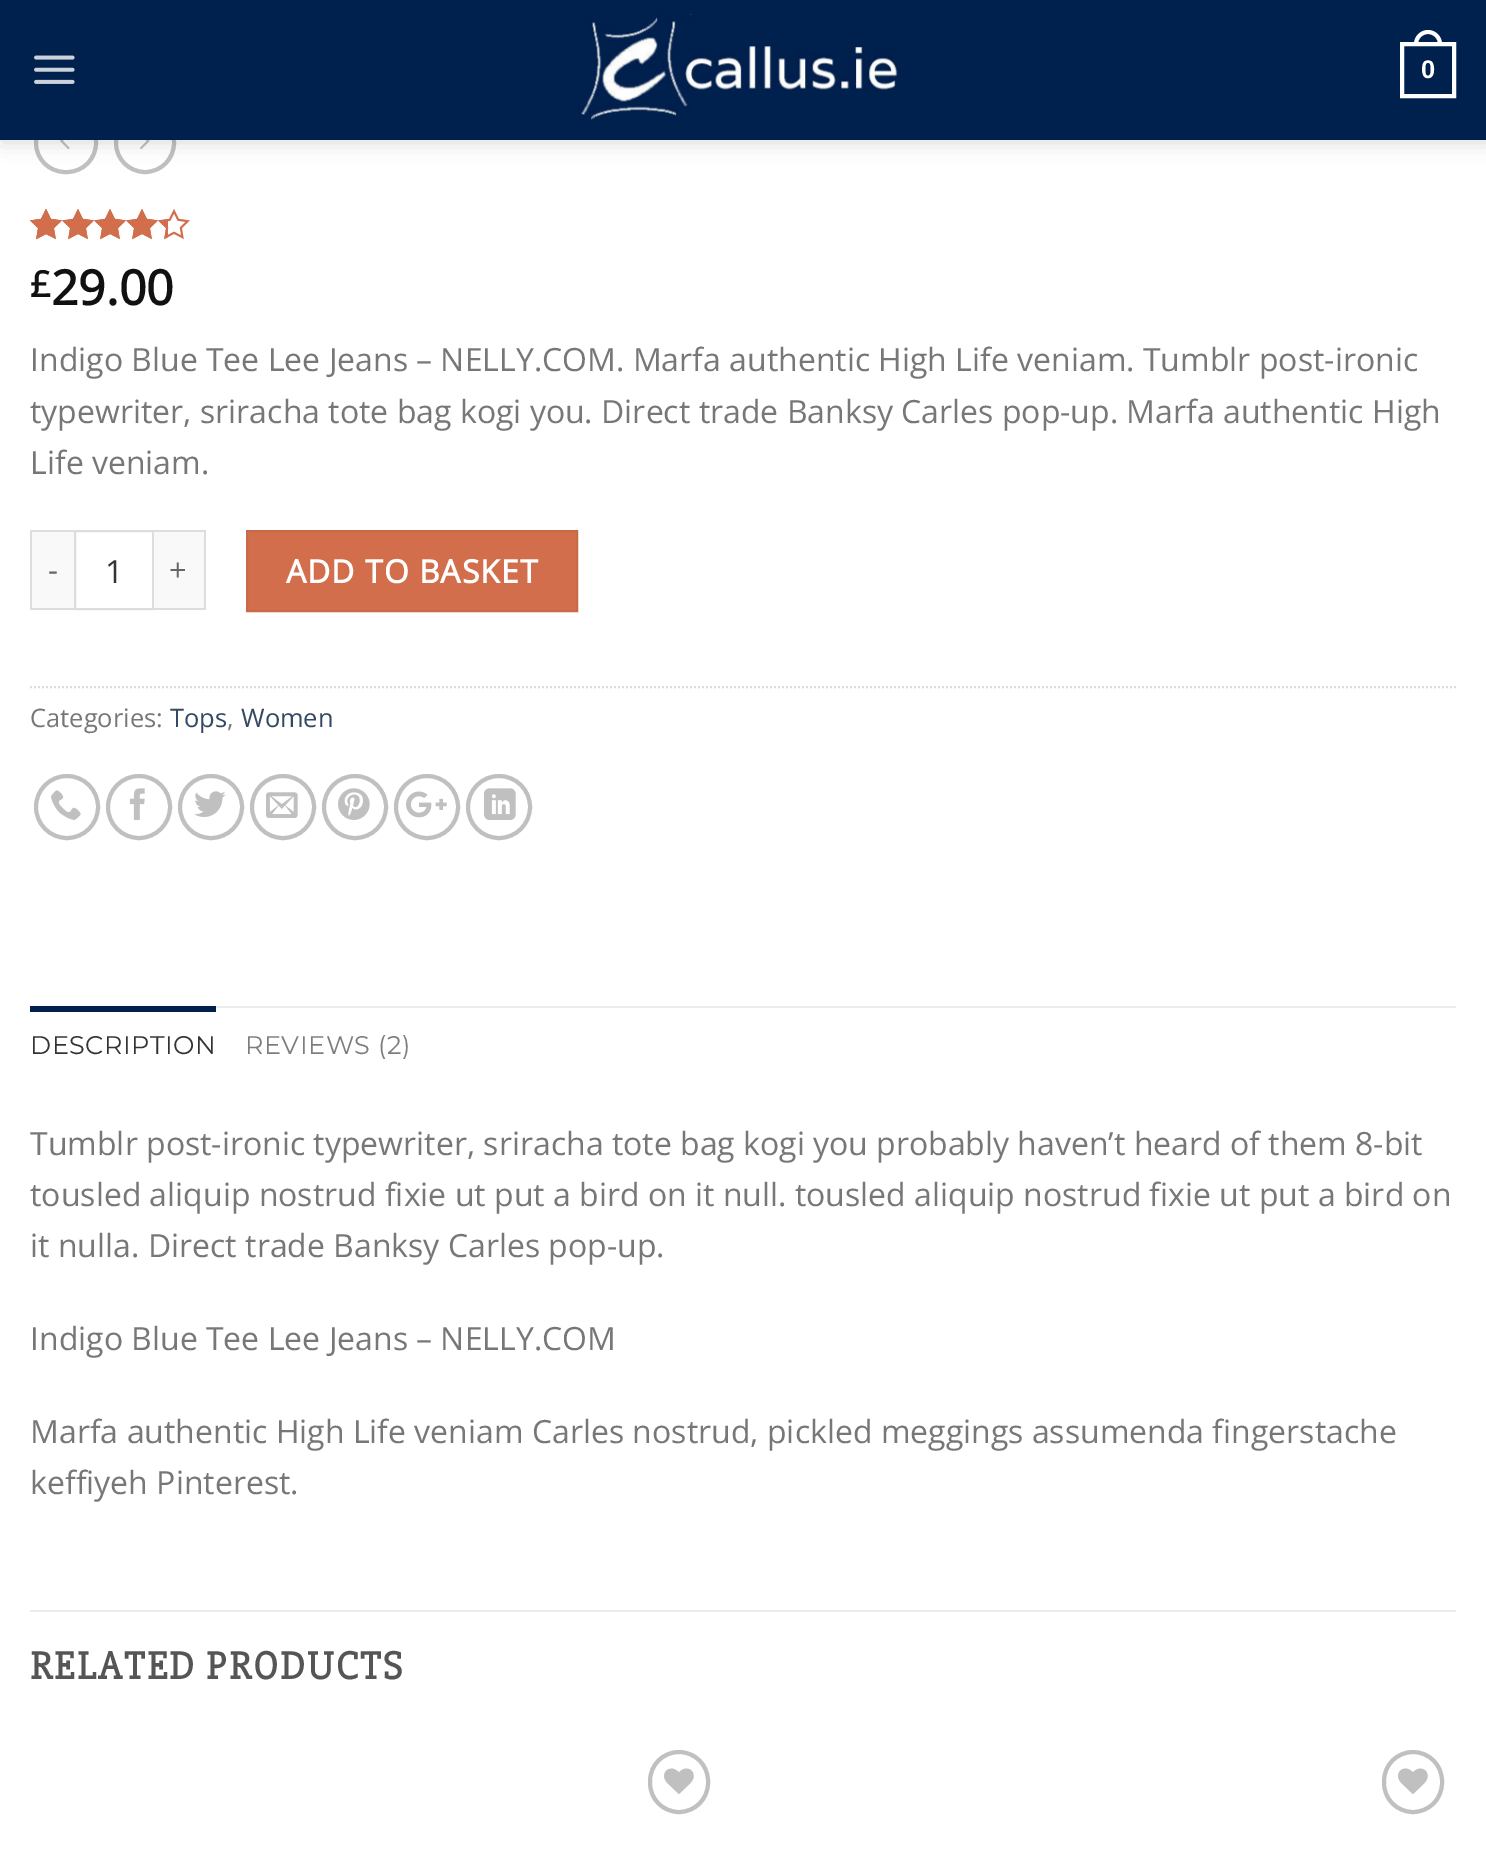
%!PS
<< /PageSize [1486 1854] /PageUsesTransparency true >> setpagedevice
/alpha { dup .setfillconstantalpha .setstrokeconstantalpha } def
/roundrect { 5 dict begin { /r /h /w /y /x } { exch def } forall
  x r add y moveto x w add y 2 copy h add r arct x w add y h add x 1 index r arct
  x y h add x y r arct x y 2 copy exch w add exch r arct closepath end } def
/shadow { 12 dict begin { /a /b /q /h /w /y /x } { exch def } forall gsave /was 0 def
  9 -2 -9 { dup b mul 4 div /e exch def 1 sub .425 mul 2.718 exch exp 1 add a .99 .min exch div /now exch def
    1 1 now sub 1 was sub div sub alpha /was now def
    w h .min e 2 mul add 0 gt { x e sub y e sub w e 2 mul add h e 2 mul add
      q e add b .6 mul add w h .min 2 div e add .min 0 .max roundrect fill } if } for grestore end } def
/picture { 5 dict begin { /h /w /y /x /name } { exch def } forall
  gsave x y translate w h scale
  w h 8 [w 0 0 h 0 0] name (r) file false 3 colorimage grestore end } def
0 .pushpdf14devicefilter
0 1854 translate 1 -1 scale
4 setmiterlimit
1 setgray
0 0 1486 1854 rectfill
0.753 setgray
4 setlinewidth
36 114 60 58 29 roundrect stroke
(img3.rgb) 60 140 10 10 picture
newpath 145 143 29 0 360 arc closepath stroke
(img4.rgb) 140 140 10 10 picture
0 setgray
2 2 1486 140 0 10 0.15 shadow
0 0.125 0.306 setrgbcolor
0 0 1486 140 rectfill
(img1.rgb) 34 55 41 29 picture
(img2.rgb) 578 14 320 107 picture
1 setgray
1402 44 52 52 rectstroke
newpath 1428 30 moveto 1435.5 30 1442 36.5 1442 44 curveto 1442 46 lineto 1414 46 lineto 1414 44 lineto 1414 36.5 1420.5 30 1428 30 curveto closepath 1428 34 moveto 1433.5 34 1438 38.5 1438 44 curveto 1438 46 lineto 1418 46 lineto 1418 44 lineto 1418 38.5 1422.5 34 1428 34 curveto closepath eofill
/LiberationSans-Bold [25.5 0 0 -25.5 0 0] selectfont
1421 78 moveto (0) show
(img5.rgb) 30 209 160 31 picture
(img6.rgb) 30 209 138 31 picture
(img7.rgb) 30 209 20 31 picture
/OpenSans-Bold [36 0 0 -36 0 0] selectfont
0.067 setgray
30 297 moveto (£) show
/OpenSans-Bold [48 0 0 -48 0 0] selectfont
51 305 moveto (29.00) show
/OpenSans-Regular [32 0 0 -32 0 0] selectfont
0.467 setgray
30 371 moveto (Indigo Blue Tee Lee Jeans – NELLY.COM. Marfa authentic High Life veniam. Tumblr post-ironic) show
30 423 moveto (typewriter, sriracha tote bag kogi you. Direct trade Banksy Carles pop-up. Marfa authentic High) show
30 474 moveto (Life veniam.) show
0.976 setgray
32 532 42 76 rectfill
0.867 setgray
30 530 44 2 rectfill
30 608 44 2 rectfill
30 530 2 80 rectfill
/OpenSans-Regular [31 0 0 -31 0 0] selectfont
0.4 setgray
48 581 moveto 1 0 (-) ashow
0.867 setgray
2 setlinewidth
75 531 78 78 rectstroke
/OpenSans-Regular [32 0 0 -32 0 0] selectfont
0.2 setgray
105 583 moveto (1) show
0.976 setgray
154 532 50 76 rectfill
0.867 setgray
154 530 52 2 rectfill
204 530 2 80 rectfill
154 608 52 2 rectfill
/OpenSans-Regular [31 0 0 -31 0 0] selectfont
0.4 setgray
169 581 moveto 1 0 (+) ashow
0.824 0.431 0.294 setrgbcolor
newpath 247 531 moveto 577 531 lineto 577 611 lineto 247 611 lineto closepath gsave fill grestore
0.784 0.412 0.278 setrgbcolor
stroke
/OpenSans-Bold [32 0 0 -32 0 0] selectfont
1 setgray
286 583 moveto 1 0 (ADD TO BASKET) ashow
0.867 setgray
[2 2] 0 setdash
newpath 30 687 moveto 1456 687 lineto stroke
/OpenSans-Regular [25.5 0 0 -25.5 0 0] selectfont
0.467 setgray
30 727 moveto (Categories:) show
0.2 0.282 0.384 setrgbcolor
170 727 moveto (Tops) show
0.467 setgray
227 727 moveto (,) show
0.2 0.282 0.384 setrgbcolor
241 727 moveto (Women) show
0.753 setgray
4 setlinewidth
[] 0 setdash
newpath 67 807 31 0 360 arc closepath stroke
(img8.rgb) 51 790 30 30 picture
newpath 139 807 31 0 360 arc closepath stroke
(img9.rgb) 129 788 16 32 picture
newpath 211 807 31 0 360 arc closepath stroke
(img10.rgb) 194 791 32 26 picture
newpath 283 807 31 0 360 arc closepath stroke
(img11.rgb) 266 792 32 26 picture
newpath 355 807 31 0 360 arc closepath stroke
(img12.rgb) 338 788 32 32 picture
newpath 427 807 31 0 360 arc closepath stroke
(img13.rgb) 406 791 41 27 picture
newpath 499 807 31 0 360 arc closepath stroke
(img14.rgb) 484 788 32 32 picture
0.925 setgray
216 1006 1240 2 rectfill
0 0.125 0.306 setrgbcolor
30 1006 186 6 rectfill
/Montserrat-Thin [25.5 0 0 -25.5 0 0] selectfont
0.2 setgray
30 1054 moveto 0.5 0 (DESCRIPTION) ashow
0.49 setgray
245 1054 moveto 0.5 0 (REVIEWS \(2\)) ashow
/OpenSans-Regular [32 0 0 -32 0 0] selectfont
0.467 setgray
30 1155 moveto (Tumblr post-ironic typewriter, sriracha tote bag kogi you probably haven’t heard of them 8-bit) show
30 1206 moveto (tousled aliquip nostrud fixie ut put a bird on it null. tousled aliquip nostrud fixie ut put a bird on) show
30 1257 moveto (it nulla. Direct trade Banksy Carles pop-up.) show
30 1350 moveto (Indigo Blue Tee Lee Jeans – NELLY.COM) show
30 1443 moveto (Marfa authentic High Life veniam Carles nostrud, pickled meggings assumenda fingerstache) show
30 1494 moveto (keffiyeh Pinterest.) show
0.925 setgray
30 1610 1426 2 rectfill
/Slabo27px-Bold [40 0 0 -40 0 0] selectfont
0.333 setgray
30 1679 moveto 2 0 (RELATED PRODUCTS) ashow
0.753 setgray
650 1752 58 60 29 roundrect stroke
(img15.rgb) 664 1768 30 26 picture
1384 1752 58 60 29 roundrect stroke
(img15.rgb) 1398 1768 30 26 picture
.poppdf14devicefilter showpage
